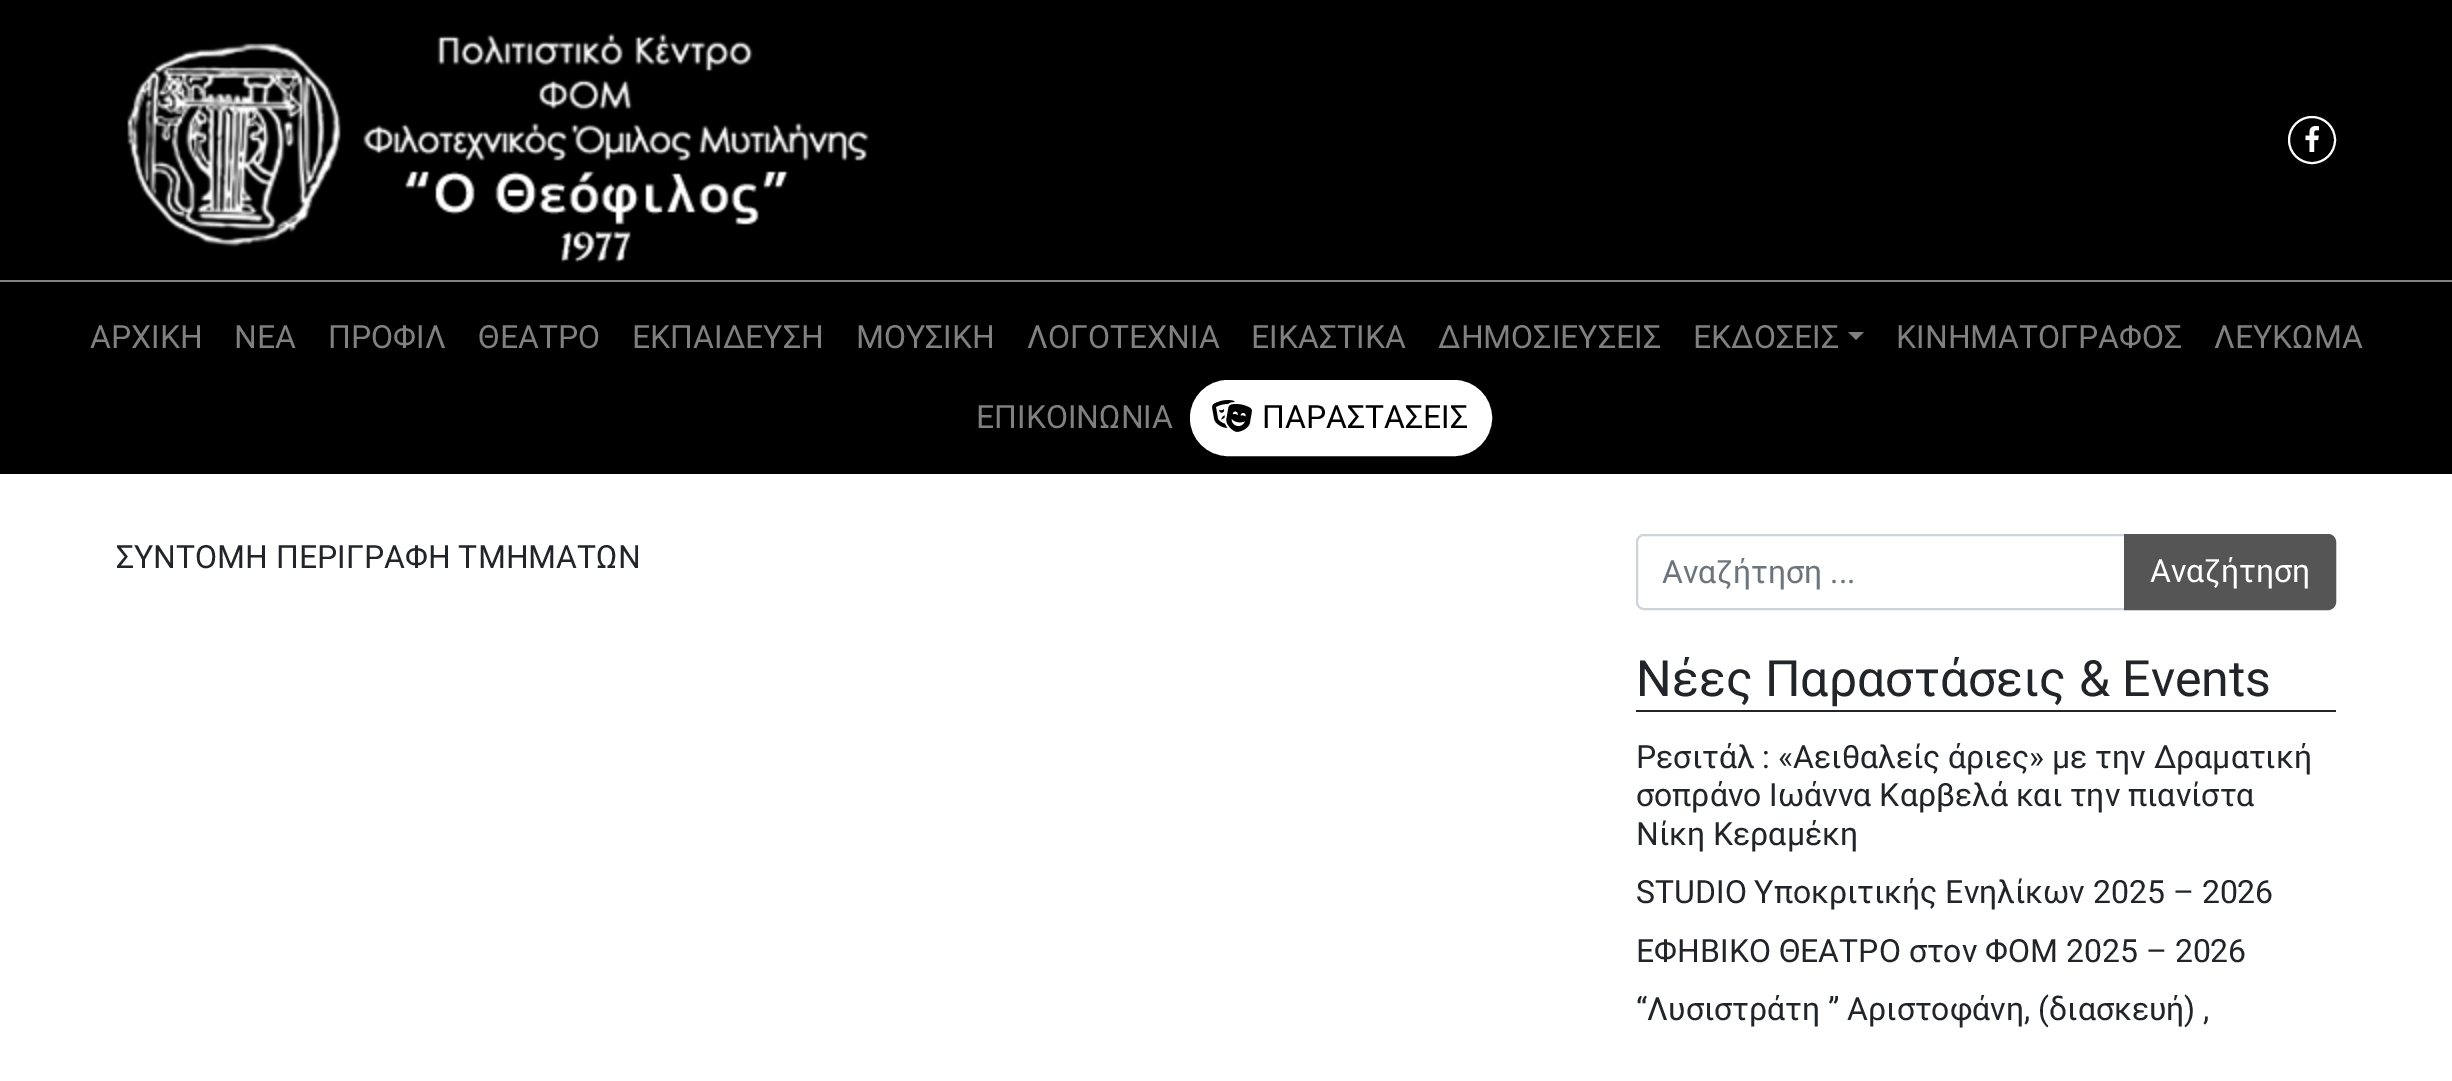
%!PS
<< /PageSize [2452 1081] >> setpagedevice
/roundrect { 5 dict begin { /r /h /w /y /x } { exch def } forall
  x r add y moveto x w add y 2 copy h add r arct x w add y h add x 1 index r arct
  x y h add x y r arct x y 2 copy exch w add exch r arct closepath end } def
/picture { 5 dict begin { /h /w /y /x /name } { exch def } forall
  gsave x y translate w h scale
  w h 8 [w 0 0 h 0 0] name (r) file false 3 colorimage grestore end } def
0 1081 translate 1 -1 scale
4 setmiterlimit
1 setgray
0 0 2452 1081 rectfill
0 setgray
0 0 2452 280 rectfill
(img1.rgb) 127 33 742 230 picture
1 setgray
2 setlinewidth
newpath 2312 140 23 0 360 arc closepath stroke
(img2.rgb) 2305 126 14 26 picture
0 setgray
0 282 2452 192 rectfill
0.502 setgray
0 280 2452 2 rectfill
/Roboto-Regular [32 0 0 -32 0 0] selectfont
90 348 moveto (ΑΡΧΙΚΗ) show
234 348 moveto (ΝΕΑ) show
328 348 moveto (ΠΡΟΦΙΛ) show
478 348 moveto (ΘΕΑΤΡΟ) show
632 348 moveto (ΕΚΠΑΙΔΕΥΣΗ) show
856 348 moveto (ΜΟΥΣΙΚΗ) show
1027 348 moveto (ΛΟΓΟΤΕΧΝΙΑ) show
1251 348 moveto (ΕΙΚΑΣΤΙΚΑ) show
1438 348 moveto (ΔΗΜΟΣΙΕΥΣΕΙΣ) show
1693 348 moveto (ΕΚΔΟΣΕΙΣ) show
newpath 1848 332 moveto 1864 332 lineto 1856 340 lineto closepath fill
1896 348 moveto (ΚΙΝΗΜΑΤΟΓΡΑΦΟΣ) show
2214 348 moveto (ΛΕΥΚΩΜΑ) show
976 428 moveto (ΕΠΙΚΟΙΝΩΝΙΑ) show
1 setgray
1192 382 298 72 36 roundrect gsave fill grestore
4 setlinewidth
stroke
(img3.rgb) 1212 400 40 32 picture
0 setgray
1262 428 moveto (ΠΑΡΑΣΤΑΣΕΙΣ) show
0.129 0.145 0.161 setrgbcolor
116 568 moveto (ΣΥΝΤΟΜΗ ΠΕΡΙΓΡΑΦΗ ΤΜΗΜΑΤΩΝ) show
0.808 0.831 0.855 setrgbcolor
2 setlinewidth
newpath 1644 535 moveto 2125 535 lineto 2125 609 lineto 1644 609 lineto 1640 609 1637 606 1637 602 curveto 1637 542 lineto 1637 538 1640 535 1644 535 curveto closepath stroke
0.424 0.459 0.49 setrgbcolor
1662 583 moveto (Αναζήτηση ...) show
0.333 setgray
newpath 2125 535 moveto 2328 535 lineto 2332 535 2335 538 2335 542 curveto 2335 602 lineto 2335 606 2332 609 2328 609 curveto 2125 609 lineto closepath gsave fill grestore
stroke
1 setgray
2150 582 moveto (Αναζήτηση) show
0.129 0.145 0.161 setrgbcolor
1636 710 700 2 rectfill
/Roboto-Regular [50 0 0 -50 0 0] selectfont
1636 696 moveto (Νέες Παραστάσεις & Events) show
/Roboto-Regular [32 0 0 -32 0 0] selectfont
1636 768 moveto (Ρεσιτάλ : «Αειθαλείς άριες» με την Δραματική) show
1636 806 moveto (σοπράνο Ιωάννα Καρβελά και την πιανίστα) show
1636 845 moveto (Νίκη Κεραμέκη) show
1636 903 moveto (STUDIO Υποκριτικής Ενηλίκων 2025 – 2026) show
1636 962 moveto (ΕΦΗΒΙΚΟ ΘΕΑΤΡΟ στον ΦΟΜ 2025 – 2026) show
1636 1020 moveto (“Λυσιστράτη ” Αριστοφάνη, \(διασκευή\) ,) show
showpage
